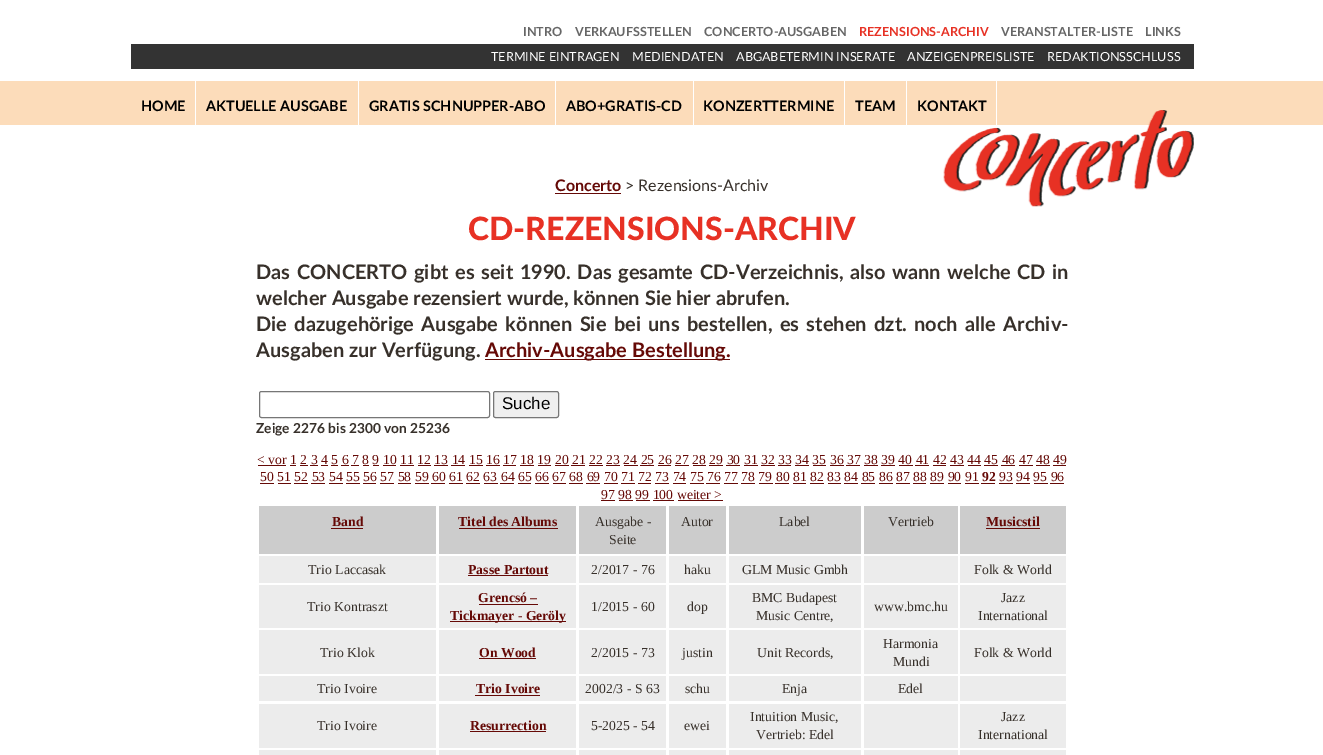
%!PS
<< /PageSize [1323 755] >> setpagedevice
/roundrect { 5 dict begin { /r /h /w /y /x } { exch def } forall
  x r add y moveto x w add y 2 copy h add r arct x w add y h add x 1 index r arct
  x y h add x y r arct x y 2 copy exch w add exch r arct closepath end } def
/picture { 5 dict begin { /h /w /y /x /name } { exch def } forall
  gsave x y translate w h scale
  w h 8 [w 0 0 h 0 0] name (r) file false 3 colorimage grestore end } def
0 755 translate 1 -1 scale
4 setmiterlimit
1 setgray
0 0 1323 755 rectfill
/Lato-Bold [12.6 0 0 -12.6 0 0] selectfont
0.4 setgray
523 36 moveto (INTRO) show
575 36 moveto (VERKAUFSSTELLEN) show
704 36 moveto (CONCERTO-AUSGABEN) show
0.906 0.192 0.141 setrgbcolor
859 36 moveto (REZENSIONS-ARCHIV) show
0.4 setgray
1001 36 moveto (VERANSTALTER-LISTE) show
1145 36 moveto (LINKS) show
0.2 setgray
131 44 1063 25 rectfill
/Lato-Regular [12.6 0 0 -12.6 0 0] selectfont
1 setgray
491 61 moveto (TERMINE EINTRAGEN) show
632 61 moveto (MEDIENDATEN) show
736 61 moveto (ABGABETERMIN INSERATE) show
907 61 moveto (ANZEIGENPREISLISTE) show
1047 61 moveto (REDAKTIONSSCHLUSS) show
0.988 0.863 0.729 setrgbcolor
0 81 1323 44 rectfill
1 setgray
195 81 1 44 rectfill
/Lato-Bold [14.4 0 0 -14.4 0 0] selectfont
0 setgray
141 111 moveto (HOME) show
1 setgray
358 81 1 44 rectfill
0 setgray
206 111 moveto (AKTUELLE AUSGABE) show
1 setgray
555 81 1 44 rectfill
0 setgray
369 111 moveto (GRATIS SCHNUPPER-ABO) show
1 setgray
693 81 1 44 rectfill
0 setgray
566 111 moveto (ABO+GRATIS-CD) show
1 setgray
844 81 1 44 rectfill
0 setgray
703 111 moveto (KONZERTTERMINE) show
1 setgray
906 81 1 44 rectfill
0 setgray
855 111 moveto (TEAM) show
(img1.rgb) 943 110 251 97 picture
1 setgray
996 81 1 44 rectfill
0 setgray
917 111 moveto (KONTAKT) show
/Lato-Bold [16 0 0 -16 0 0] selectfont
0.396 0.035 0.024 setrgbcolor
555 191 moveto (Concerto) show
555 193 66 1 rectfill
/Lato-Regular [16 0 0 -16 0 0] selectfont
0.216 0.188 0.165 setrgbcolor
625 191 moveto (> Rezensions-Archiv) show
/Lato-Black [32 0 0 -32 0 0] selectfont
0.906 0.192 0.141 setrgbcolor
468 240 moveto (CD-REZENSIONS-ARCHIV) show
/Lato-Bold [20 0 0 -20 0 0] selectfont
0.216 0.188 0.165 setrgbcolor
256 279 moveto 1.75 0 32 (Das CONCERTO gibt es seit 1990. Das gesamte CD-Verzeichnis, also wann welche CD in) widthshow
256 305 moveto (welcher Ausgabe rezensiert wurde, können Sie hier abrufen.) show
256 331 moveto 2.5 0 32 (Die dazugehörige Ausgabe können Sie bei uns bestellen, es stehen dzt. noch alle Archiv-) widthshow
256 357 moveto (Ausgaben zur Verfügung.) show
0.396 0.035 0.024 setrgbcolor
485 359 245 1 rectfill
485 357 moveto (Archiv-Ausgabe Bestellung.) show
0.463 setgray
259.5 391.5 230 26 2 roundrect stroke
0.937 setgray
493.5 391.5 65 26 2 roundrect gsave fill grestore
0.463 setgray
stroke
/LiberationSans-Regular [17 0 0 -17 0 0] selectfont
0 setgray
502 409 moveto (Suche) show
/Lato-Bold [13.75 0 0 -13.75 0 0] selectfont
0.216 0.188 0.165 setrgbcolor
256 433 moveto (Zeige 2276 bis 2300 von 25236) show
/LiberationSerif-Regular [13.75 0 0 -13.75 0 0] selectfont
0.396 0.035 0.024 setrgbcolor
257 464 moveto (< vor 1 2 3 4 5 6 7 8 9 10 11 12 13 14 15 16 17 18 19 20 21 22 23 24 25 26 27 28 29 30 31 32 33 34 35 36 37 38 39 40 41 42 43 44 45 46 47 48 49) show
258 465 28 1 rectfill
290 465 6 1 rectfill
300 465 8 1 rectfill
310 465 8 1 rectfill
321 465 7 1 rectfill
331 465 7 1 rectfill
341 465 8 1 rectfill
351 465 8 1 rectfill
363 465 6 1 rectfill
373 465 6 1 rectfill
383 465 13 1 rectfill
400 465 14 1 rectfill
418 465 13 1 rectfill
434 465 14 1 rectfill
451 465 14 1 rectfill
469 465 14 1 rectfill
486 465 14 1 rectfill
503 465 13 1 rectfill
520 465 14 1 rectfill
538 465 13 1 rectfill
555 465 14 1 rectfill
571 465 14 1 rectfill
589 465 14 1 rectfill
606 465 14 1 rectfill
624 465 14 1 rectfill
640 465 14 1 rectfill
658 465 13 1 rectfill
675 465 14 1 rectfill
693 465 13 1 rectfill
709 465 14 1 rectfill
726 465 14 1 rectfill
744 465 14 1 rectfill
761 465 14 1 rectfill
778 465 13 1 rectfill
795 465 14 1 rectfill
813 465 13 1 rectfill
830 465 14 1 rectfill
846 465 14 1 rectfill
864 465 14 1 rectfill
881 465 14 1 rectfill
899 465 14 1 rectfill
915 465 14 1 rectfill
933 465 13 1 rectfill
950 465 14 1 rectfill
968 465 13 1 rectfill
984 465 14 1 rectfill
1001 465 14 1 rectfill
1019 465 14 1 rectfill
1036 465 14 1 rectfill
1053 465 13 1 rectfill
260 481 moveto (50 51 52 53 54 55 56 57 58 59 60 61 62 63 64 65 66 67 68 69 70 71 72 73 74 75 76 77 78 79 80 81 82 83 84 85 86 87 88 89 90 91) show
260 483 14 1 rectfill
/LiberationSerif-Bold [13.75 0 0 -13.75 0 0] selectfont
982 481 moveto (92) show
981 483 14 1 rectfill
/LiberationSerif-Regular [13.75 0 0 -13.75 0 0] selectfont
999 481 moveto (93 94 95 96) show
999 483 14 1 rectfill
278 483 13 1 rectfill
294 483 14 1 rectfill
311 483 14 1 rectfill
329 483 14 1 rectfill
346 483 14 1 rectfill
363 483 13 1 rectfill
380 483 14 1 rectfill
398 483 13 1 rectfill
415 483 14 1 rectfill
431 483 14 1 rectfill
449 483 14 1 rectfill
466 483 14 1 rectfill
484 483 14 1 rectfill
500 483 14 1 rectfill
518 483 13 1 rectfill
535 483 14 1 rectfill
553 483 13 1 rectfill
569 483 14 1 rectfill
586 483 14 1 rectfill
604 483 14 1 rectfill
621 483 14 1 rectfill
638 483 13 1 rectfill
655 483 14 1 rectfill
673 483 13 1 rectfill
690 483 14 1 rectfill
706 483 14 1 rectfill
724 483 14 1 rectfill
741 483 14 1 rectfill
759 483 14 1 rectfill
775 483 14 1 rectfill
793 483 13 1 rectfill
810 483 14 1 rectfill
828 483 13 1 rectfill
844 483 14 1 rectfill
861 483 14 1 rectfill
879 483 14 1 rectfill
896 483 14 1 rectfill
913 483 13 1 rectfill
930 483 14 1 rectfill
948 483 13 1 rectfill
965 483 14 1 rectfill
1016 483 14 1 rectfill
1034 483 14 1 rectfill
1050 483 14 1 rectfill
601 499 moveto (97 98 99 100 weiter >) show
601 500 14 1 rectfill
619 500 14 1 rectfill
636 500 14 1 rectfill
653 500 21 1 rectfill
678 500 45 1 rectfill
0.8 setgray
259 506 177 48 rectfill
/LiberationSerif-Bold [13.75 0 0 -13.75 0 0] selectfont
0.396 0.035 0.024 setrgbcolor
332 526 moveto (Band) show
331 528 32 1 rectfill
0.8 setgray
439 506 137 48 rectfill
0.396 0.035 0.024 setrgbcolor
458 526 moveto (Titel des Albums) show
459 528 99 1 rectfill
0.8 setgray
579 506 87 48 rectfill
/LiberationSerif-Regular [13.75 0 0 -13.75 0 0] selectfont
0.216 0.188 0.165 setrgbcolor
595 526 moveto (Ausgabe -) show
609 544 moveto (Seite) show
0.8 setgray
669 506 57 48 rectfill
0.216 0.188 0.165 setrgbcolor
681 526 moveto (Autor) show
0.8 setgray
729 506 132 48 rectfill
0.216 0.188 0.165 setrgbcolor
779 526 moveto (Label) show
0.8 setgray
864 506 94 48 rectfill
0.216 0.188 0.165 setrgbcolor
888 526 moveto (Vertrieb) show
0.8 setgray
960 506 106 48 rectfill
/LiberationSerif-Bold [13.75 0 0 -13.75 0 0] selectfont
0.396 0.035 0.024 setrgbcolor
986 526 moveto (Musicstil) show
986 528 54 1 rectfill
0.925 setgray
259 556 177 27 rectfill
/LiberationSerif-Regular [13.75 0 0 -13.75 0 0] selectfont
0.216 0.188 0.165 setrgbcolor
308 574 moveto (Trio Laccasak) show
0.925 setgray
439 556 137 27 rectfill
/LiberationSerif-Bold [13.75 0 0 -13.75 0 0] selectfont
0.396 0.035 0.024 setrgbcolor
468 574 moveto (Passe Partout) show
468 575 80 1 rectfill
0.925 setgray
579 556 87 27 rectfill
/LiberationSerif-Regular [13.75 0 0 -13.75 0 0] selectfont
0.216 0.188 0.165 setrgbcolor
591 574 moveto (2/2017 - 76) show
0.925 setgray
669 556 57 27 rectfill
0.216 0.188 0.165 setrgbcolor
684 574 moveto (haku) show
0.925 setgray
729 556 132 27 rectfill
0.216 0.188 0.165 setrgbcolor
742 574 moveto (GLM Music Gmbh) show
0.925 setgray
864 556 94 27 rectfill
960 556 106 27 rectfill
0.216 0.188 0.165 setrgbcolor
974 574 moveto (Folk & World) show
0.925 setgray
259 585 177 43 rectfill
0.216 0.188 0.165 setrgbcolor
307 611 moveto (Trio Kontraszt) show
0.925 setgray
439 585 137 43 rectfill
/LiberationSerif-Bold [13.75 0 0 -13.75 0 0] selectfont
0.396 0.035 0.024 setrgbcolor
478 602 moveto (Grencsó –) show
479 604 59 1 rectfill
450 621 116 1 rectfill
450 620 moveto (Tickmayer - Geröly) show
0.925 setgray
579 585 87 43 rectfill
/LiberationSerif-Regular [13.75 0 0 -13.75 0 0] selectfont
0.216 0.188 0.165 setrgbcolor
591 611 moveto (1/2015 - 60) show
0.925 setgray
669 585 57 43 rectfill
0.216 0.188 0.165 setrgbcolor
687 611 moveto (dop) show
0.925 setgray
729 585 132 43 rectfill
0.216 0.188 0.165 setrgbcolor
752 602 moveto (BMC Budapest) show
756 620 moveto (Music Centre,) show
0.925 setgray
864 585 94 43 rectfill
0.216 0.188 0.165 setrgbcolor
874 611 moveto (www.bmc.hu) show
0.925 setgray
960 585 106 43 rectfill
0.216 0.188 0.165 setrgbcolor
1001 602 moveto (Jazz) show
978 620 moveto (International) show
0.925 setgray
259 630 177 44 rectfill
0.216 0.188 0.165 setrgbcolor
320 657 moveto (Trio Klok) show
0.925 setgray
439 630 137 44 rectfill
/LiberationSerif-Bold [13.75 0 0 -13.75 0 0] selectfont
0.396 0.035 0.024 setrgbcolor
479 657 moveto (On Wood) show
479 658 57 1 rectfill
0.925 setgray
579 630 87 44 rectfill
/LiberationSerif-Regular [13.75 0 0 -13.75 0 0] selectfont
0.216 0.188 0.165 setrgbcolor
591 657 moveto (2/2015 - 73) show
0.925 setgray
669 630 57 44 rectfill
0.216 0.188 0.165 setrgbcolor
682 657 moveto (justin) show
0.925 setgray
729 630 132 44 rectfill
0.216 0.188 0.165 setrgbcolor
757 657 moveto (Unit Records,) show
0.925 setgray
864 630 94 44 rectfill
0.216 0.188 0.165 setrgbcolor
883 648 moveto (Harmonia) show
893 666 moveto (Mundi) show
0.925 setgray
960 630 106 44 rectfill
0.216 0.188 0.165 setrgbcolor
974 657 moveto (Folk & World) show
0.925 setgray
259 676 177 25 rectfill
0.216 0.188 0.165 setrgbcolor
317 693 moveto (Trio Ivoire) show
0.925 setgray
439 676 137 25 rectfill
/LiberationSerif-Bold [13.75 0 0 -13.75 0 0] selectfont
0.396 0.035 0.024 setrgbcolor
476 693 moveto (Trio Ivoire) show
475 695 65 1 rectfill
0.925 setgray
579 676 87 25 rectfill
/LiberationSerif-Regular [13.75 0 0 -13.75 0 0] selectfont
0.216 0.188 0.165 setrgbcolor
585 693 moveto (2002/3 - S 63) show
0.925 setgray
669 676 57 25 rectfill
0.216 0.188 0.165 setrgbcolor
685 693 moveto (schu) show
0.925 setgray
729 676 132 25 rectfill
0.216 0.188 0.165 setrgbcolor
782 693 moveto (Enja) show
0.925 setgray
864 676 94 25 rectfill
0.216 0.188 0.165 setrgbcolor
898 693 moveto (Edel) show
0.925 setgray
960 676 106 25 rectfill
259 704 177 44 rectfill
0.216 0.188 0.165 setrgbcolor
317 730 moveto (Trio Ivoire) show
0.925 setgray
439 704 137 44 rectfill
/LiberationSerif-Bold [13.75 0 0 -13.75 0 0] selectfont
0.396 0.035 0.024 setrgbcolor
470 730 moveto (Resurrection) show
470 731 76 1 rectfill
0.925 setgray
579 704 87 44 rectfill
/LiberationSerif-Regular [13.75 0 0 -13.75 0 0] selectfont
0.216 0.188 0.165 setrgbcolor
591 730 moveto (5-2025 - 54) show
0.925 setgray
669 704 57 44 rectfill
0.216 0.188 0.165 setrgbcolor
684 730 moveto (ewei) show
0.925 setgray
729 704 132 44 rectfill
0.216 0.188 0.165 setrgbcolor
750 721 moveto (Intuition Music,) show
756 739 moveto (Vertrieb: Edel) show
0.925 setgray
864 704 94 44 rectfill
960 704 106 44 rectfill
0.216 0.188 0.165 setrgbcolor
1001 721 moveto (Jazz) show
978 739 moveto (International) show
0.925 setgray
259 750 177 5 rectfill
439 750 137 5 rectfill
579 750 87 5 rectfill
669 750 57 5 rectfill
729 750 132 5 rectfill
864 750 94 5 rectfill
960 750 106 5 rectfill
showpage
